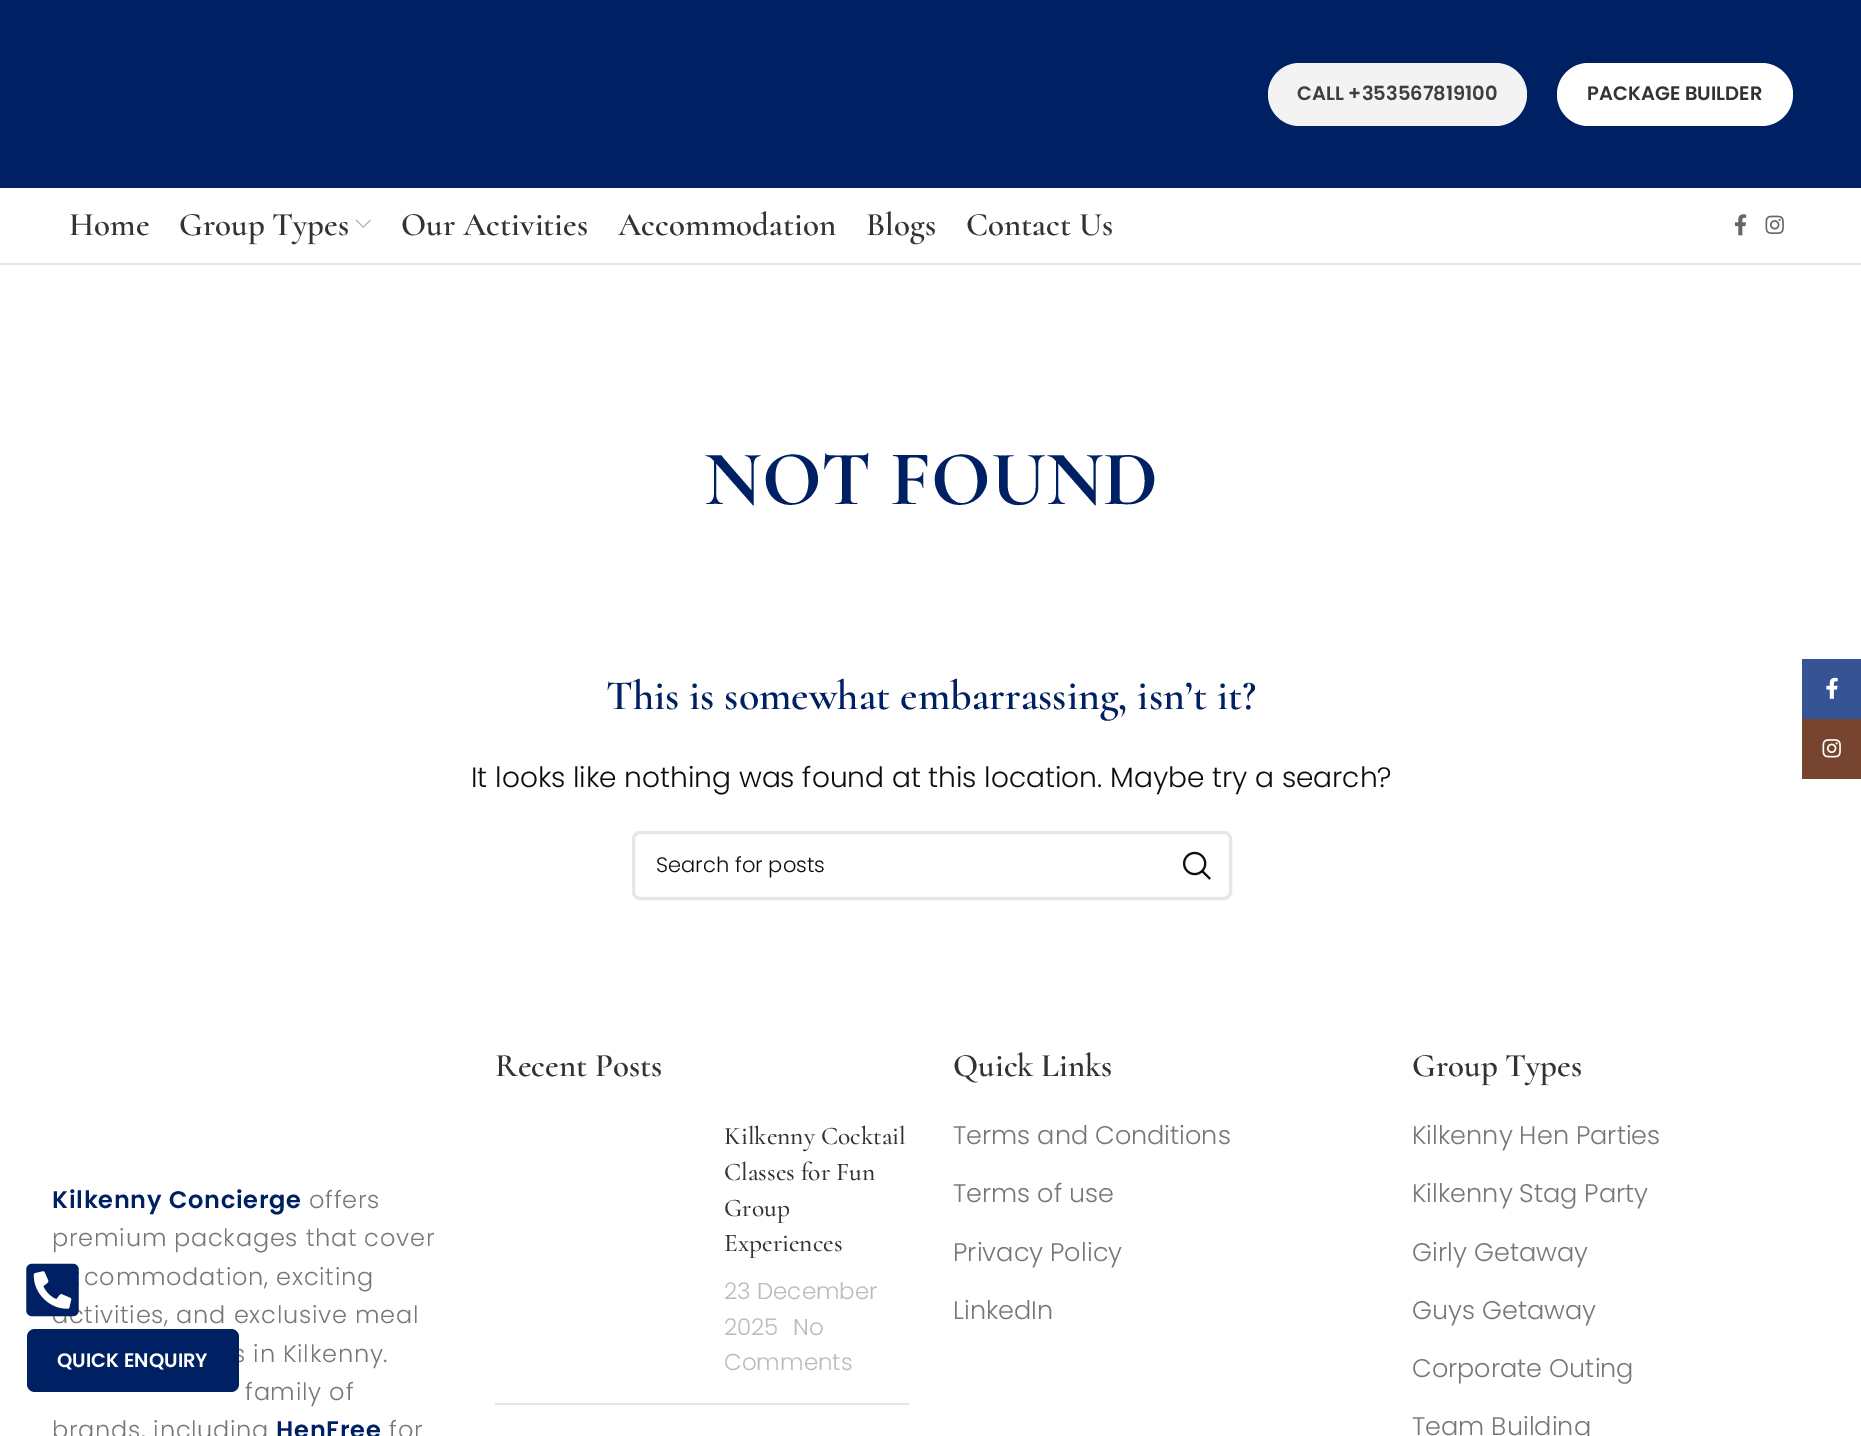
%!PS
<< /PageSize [1861 1436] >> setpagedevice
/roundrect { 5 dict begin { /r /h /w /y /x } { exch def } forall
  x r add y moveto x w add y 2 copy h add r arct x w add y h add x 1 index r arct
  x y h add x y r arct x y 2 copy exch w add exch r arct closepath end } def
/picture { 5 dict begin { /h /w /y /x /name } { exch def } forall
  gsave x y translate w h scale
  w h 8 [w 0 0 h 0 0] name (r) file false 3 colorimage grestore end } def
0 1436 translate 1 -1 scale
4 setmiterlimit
1 setgray
0 0 1861 1436 rectfill
0 0.125 0.392 setrgbcolor
0 0 1861 188 rectfill
0.953 setgray
1268 63 259 63 31.5 roundrect fill
/Poppins-SemiBold [19.5 0 0 -19.5 0 0] selectfont
0.243 setgray
1297 100 moveto (CALL +353567819100) show
1 setgray
1557 63 236 63 31.5 roundrect fill
0.2 setgray
1587 100 moveto (PACKAGE BUILDER) show
0.902 setgray
0 263 1861 2 rectfill
/Cormorant-SemiBold [33 0 0 -33 0 0] selectfont
0.2 setgray
69 235 moveto (Home) show
179 235 moveto (Group Types) show
(img1.rgb) 355 219 16 9 picture
401 235 moveto (Our Activities) show
618 235 moveto (Accommodation) show
866 235 moveto (Blogs) show
966 235 moveto (Contact Us) show
(img2.rgb) 1734 214 13 22 picture
(img3.rgb) 1765 215 19 19 picture
/Cormorant-Bold [78.25 0 0 -78.25 0 0] selectfont
0 0.125 0.392 setrgbcolor
704 504 moveto (NOT FOUND) show
/Cormorant-SemiBold [42 0 0 -42 0 0] selectfont
606 709 moveto (This is somewhat embarrassing, isn’t it?) show
/Poppins-Light [28.05 0 0 -28.05 0 0] selectfont
0.055 0.051 0.051 setrgbcolor
471 787 moveto (It looks like nothing was found at this location. Maybe try a search?) show
0.902 setgray
3 setlinewidth
633.5 832.5 597 66 6.5 roundrect stroke
/Poppins-Light [21 0 0 -21 0 0] selectfont
0.055 0.051 0.051 setrgbcolor
656 872 moveto (Search for posts) show
(img4.rgb) 1182 851 29 29 picture
/Poppins-SemiBold [24 0 0 -24 0 0] selectfont
0 0.125 0.392 setrgbcolor
52 1208 moveto 0.75 0 (Kilkenny Concierge) ashow
/Poppins-Light [24 0 0 -24 0 0] selectfont
0.467 setgray
309 1208 moveto 0.75 0 (offers) ashow
52 1246 moveto 0.75 0 (premium packages that cover) ashow
84 1285 moveto 0.75 0 (commodation, exciting) ashow
52 1323 moveto 0.75 0 (activities, and exclusive meal) ashow
233 1362 moveto 0.75 0 (s in Kilkenny.) ashow
245 1400 moveto 0.75 0 (family of) ashow
52 1438 moveto 0.75 0 (brands, including) ashow
/Poppins-SemiBold [24 0 0 -24 0 0] selectfont
0 0.125 0.392 setrgbcolor
276 1438 moveto 0.75 0 (HenFree) ashow
/Poppins-Light [24 0 0 -24 0 0] selectfont
0.467 setgray
389 1438 moveto 0.75 0 (for) ashow
(img5.rgb) 26 1263 53 54 picture
0 0.125 0.392 setrgbcolor
27 1329 212 63 8 roundrect fill
/Poppins-SemiBold [19.5 0 0 -19.5 0 0] selectfont
1 setgray
57 1367 moveto (QUICK ENQUIRY) show
/Cormorant-SemiBold [33 0 0 -33 0 0] selectfont
0.2 setgray
495 1076 moveto (Recent Posts) show
0.894 setgray
495 1403 414 2 rectfill
/Cormorant-Medium [25.5 0 0 -25.5 0 0] selectfont
0.2 setgray
724 1144 moveto (Kilkenny Cocktail) show
724 1180 moveto (Classes for Fun) show
724 1216 moveto (Group) show
724 1251 moveto (Experiences) show
/Poppins-Light [23 0 0 -23 0 0] selectfont
0.733 setgray
724 1299 moveto (23 December) show
724 1335 moveto (2025) show
793 1335 moveto (No) show
724 1370 moveto (Comments) show
/Cormorant-SemiBold [33 0 0 -33 0 0] selectfont
0.2 setgray
953 1076 moveto (Quick Links) show
/Poppins-Light [25.5 0 0 -25.5 0 0] selectfont
0.467 setgray
953 1144 moveto (Terms and Conditions) show
953 1202 moveto (Terms of use) show
953 1261 moveto (Privacy Policy) show
953 1319 moveto (LinkedIn) show
/Cormorant-SemiBold [33 0 0 -33 0 0] selectfont
0.2 setgray
1412 1076 moveto (Group Types) show
/Poppins-Light [25.5 0 0 -25.5 0 0] selectfont
0.467 setgray
1412 1144 moveto (Kilkenny Hen Parties) show
1412 1202 moveto (Kilkenny Stag Party) show
1412 1261 moveto (Girly Getaway) show
1412 1319 moveto (Guys Getaway) show
1412 1377 moveto (Corporate Outing) show
1412 1435 moveto (Team Building) show
0.212 0.329 0.576 setrgbcolor
1802 659 59 60 rectfill
(img6.rgb) 1826 677 12 22 picture
0.467 0.267 0.188 setrgbcolor
1802 719 59 60 rectfill
(img7.rgb) 1822 739 19 19 picture
showpage
